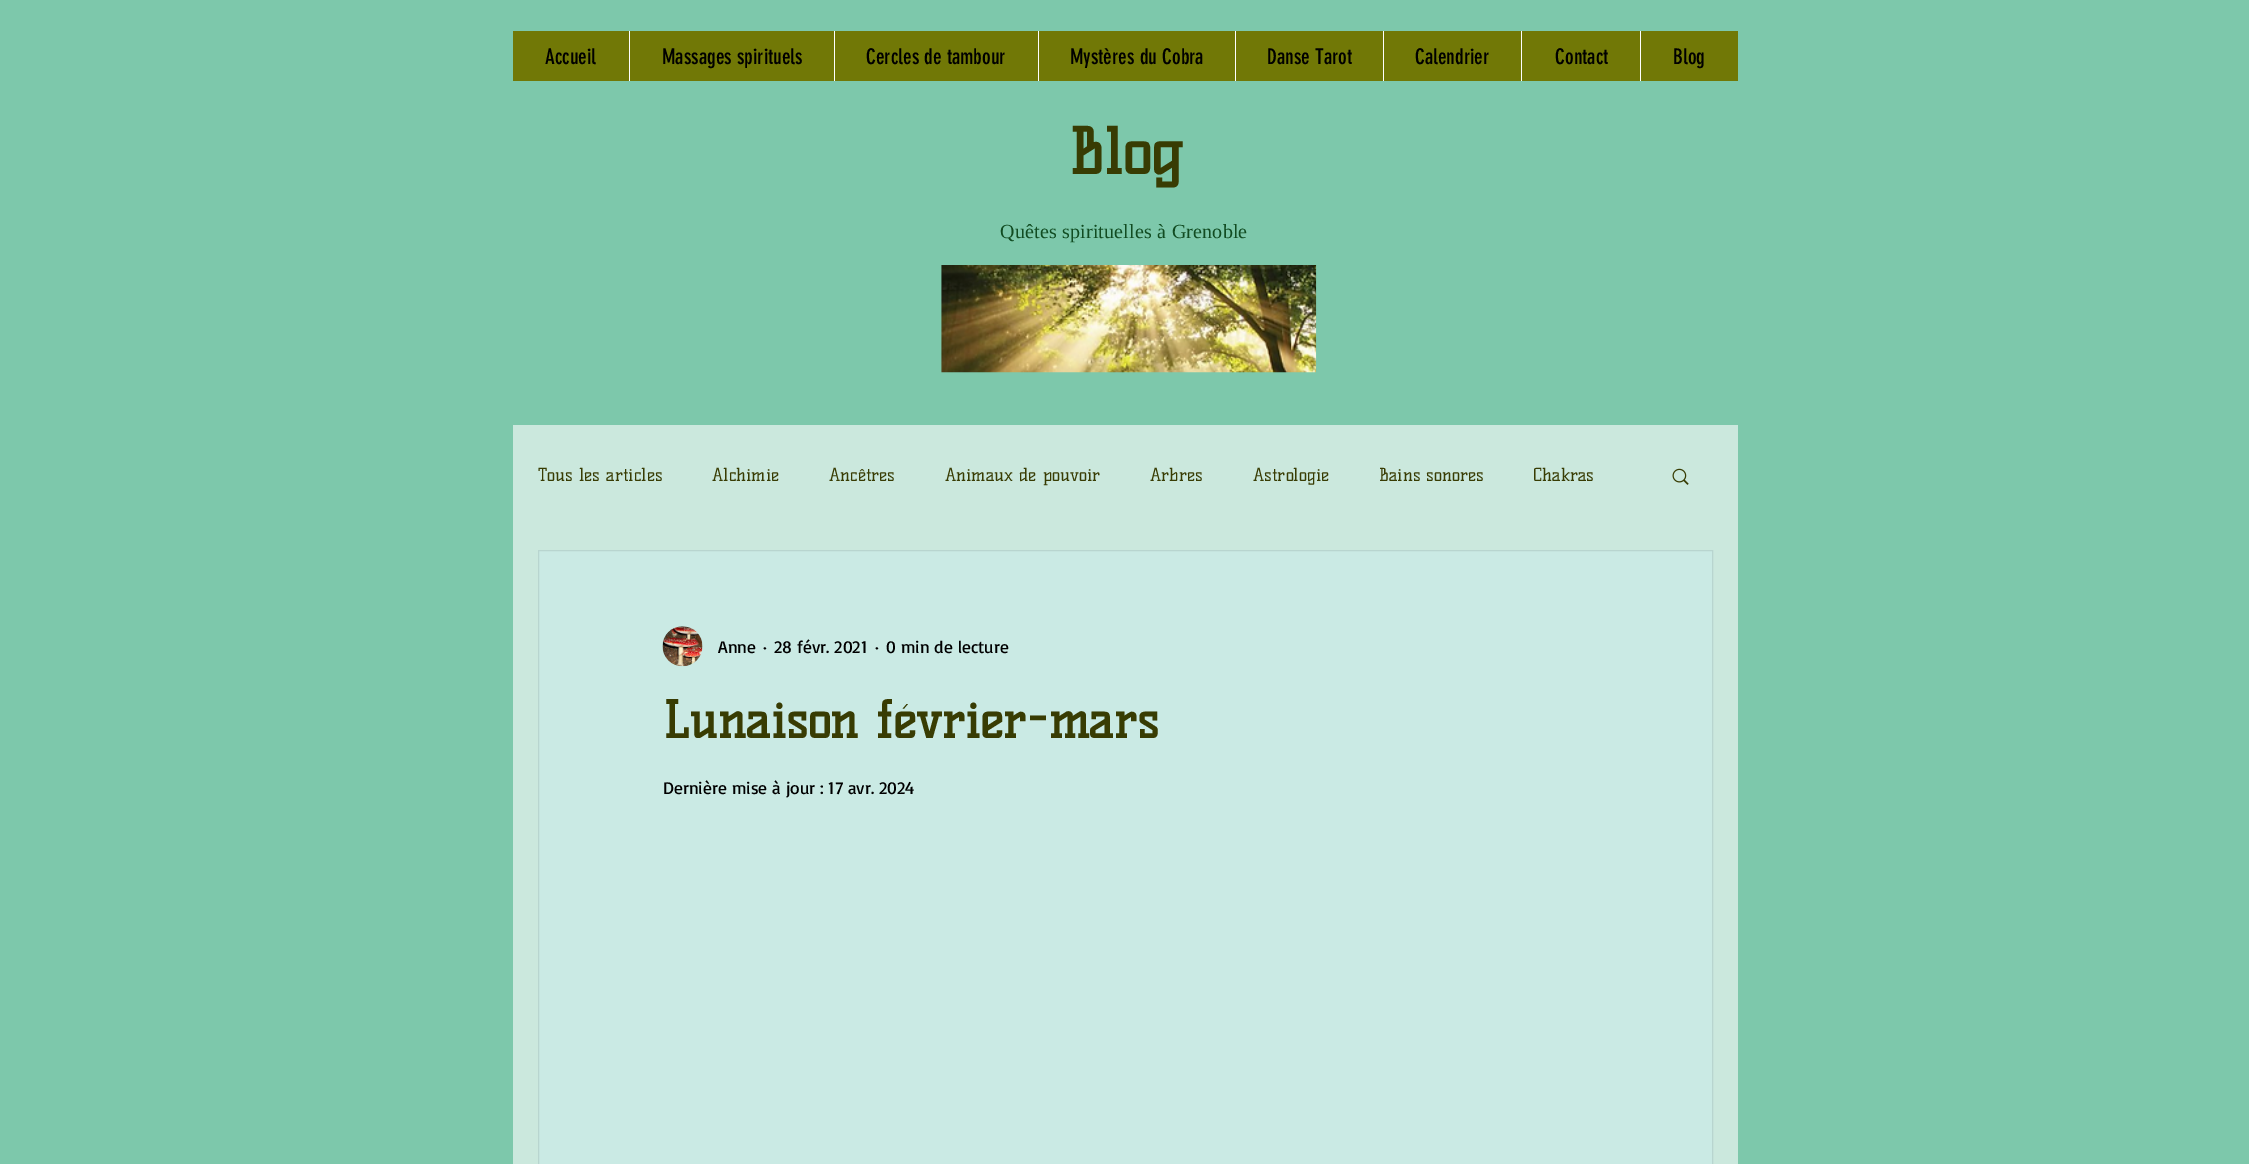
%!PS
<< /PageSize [2249 1164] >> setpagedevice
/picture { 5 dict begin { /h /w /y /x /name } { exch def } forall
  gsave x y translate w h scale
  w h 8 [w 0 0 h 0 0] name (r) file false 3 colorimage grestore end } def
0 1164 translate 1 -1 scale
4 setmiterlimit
0.49 0.784 0.671 setrgbcolor
0 0 2249 1164 rectfill
0.443 0.471 0.024 setrgbcolor
513 31 1225 50 rectfill
/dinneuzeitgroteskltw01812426-Regular [21.25 0 0 -21.25 0 0] selectfont
0 setgray
545 64 moveto (Accueil) show
1 setgray
629 31 1 50 rectfill
0 setgray
662 64 moveto (Massages spirituels) show
1 setgray
834 31 1 50 rectfill
0 setgray
866 64 moveto (Cercles de tambour) show
1 setgray
1038 31 1 50 rectfill
0 setgray
1070 64 moveto (Mystères du Cobra) show
1 setgray
1235 31 1 50 rectfill
0 setgray
1267 64 moveto (Danse Tarot) show
1 setgray
1383 31 1 50 rectfill
0 setgray
1415 64 moveto (Calendrier) show
1 setgray
1521 31 1 50 rectfill
0 setgray
1555 64 moveto (Contact) show
1 setgray
1640 31 1 50 rectfill
0 setgray
1673 64 moveto (Blog) show
/LiberationSerif-Regular [20 0 0 -20 0 0] selectfont
0.067 0.298 0.133 setrgbcolor
1000 238 moveto 0.2 0 (Quêtes spirituelles à Grenoble) ashow
(img1.rgb) 941 265 376 108 picture
/KellySlab-Bold [62 0 0 -62 0 0] selectfont
0.22 0.235 0.012 setrgbcolor
1069 174 moveto (Blog) show
0.796 0.91 0.867 setrgbcolor
513 425 1225 739 rectfill
/KellySlab-Regular [17.5 0 0 -17.5 0 0] selectfont
0.22 0.235 0.012 setrgbcolor
538 481 moveto (Tous les articles) show
712 481 moveto (Alchimie) show
829 481 moveto (Ancêtres) show
945 481 moveto (Animaux de pouvoir) show
1150 481 moveto (Arbres) show
1253 481 moveto (Astrologie) show
1379 481 moveto (Bains sonores) show
1533 481 moveto (Chakras) show
(img2.rgb) 1672 468 17 17 picture
0.792 0.918 0.894 setrgbcolor
newpath 538.5 550.5 moveto 1712.5 550.5 lineto 1712.5 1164.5 lineto 538.5 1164.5 lineto closepath gsave fill grestore
0.722 0.835 0.812 setrgbcolor
stroke
(img3.rgb) 662 626 41 41 picture
/Basic-Regular [17.5 0 0 -17.5 0 0] selectfont
0 setgray
718 653 moveto (Anne) show
763 653 moveto (·) show
774 653 moveto (28 févr. 2021) show
875 653 moveto (·) show
886 653 moveto (0 min de lecture) show
/KellySlab-Bold [50 0 0 -50 0 0] selectfont
0.22 0.235 0.012 setrgbcolor
663 738 moveto (Lunaison février-mars) show
/Basic-Regular [17.5 0 0 -17.5 0 0] selectfont
0 setgray
663 794 moveto (Dernière mise à jour : 17 avr. 2024) show
showpage
